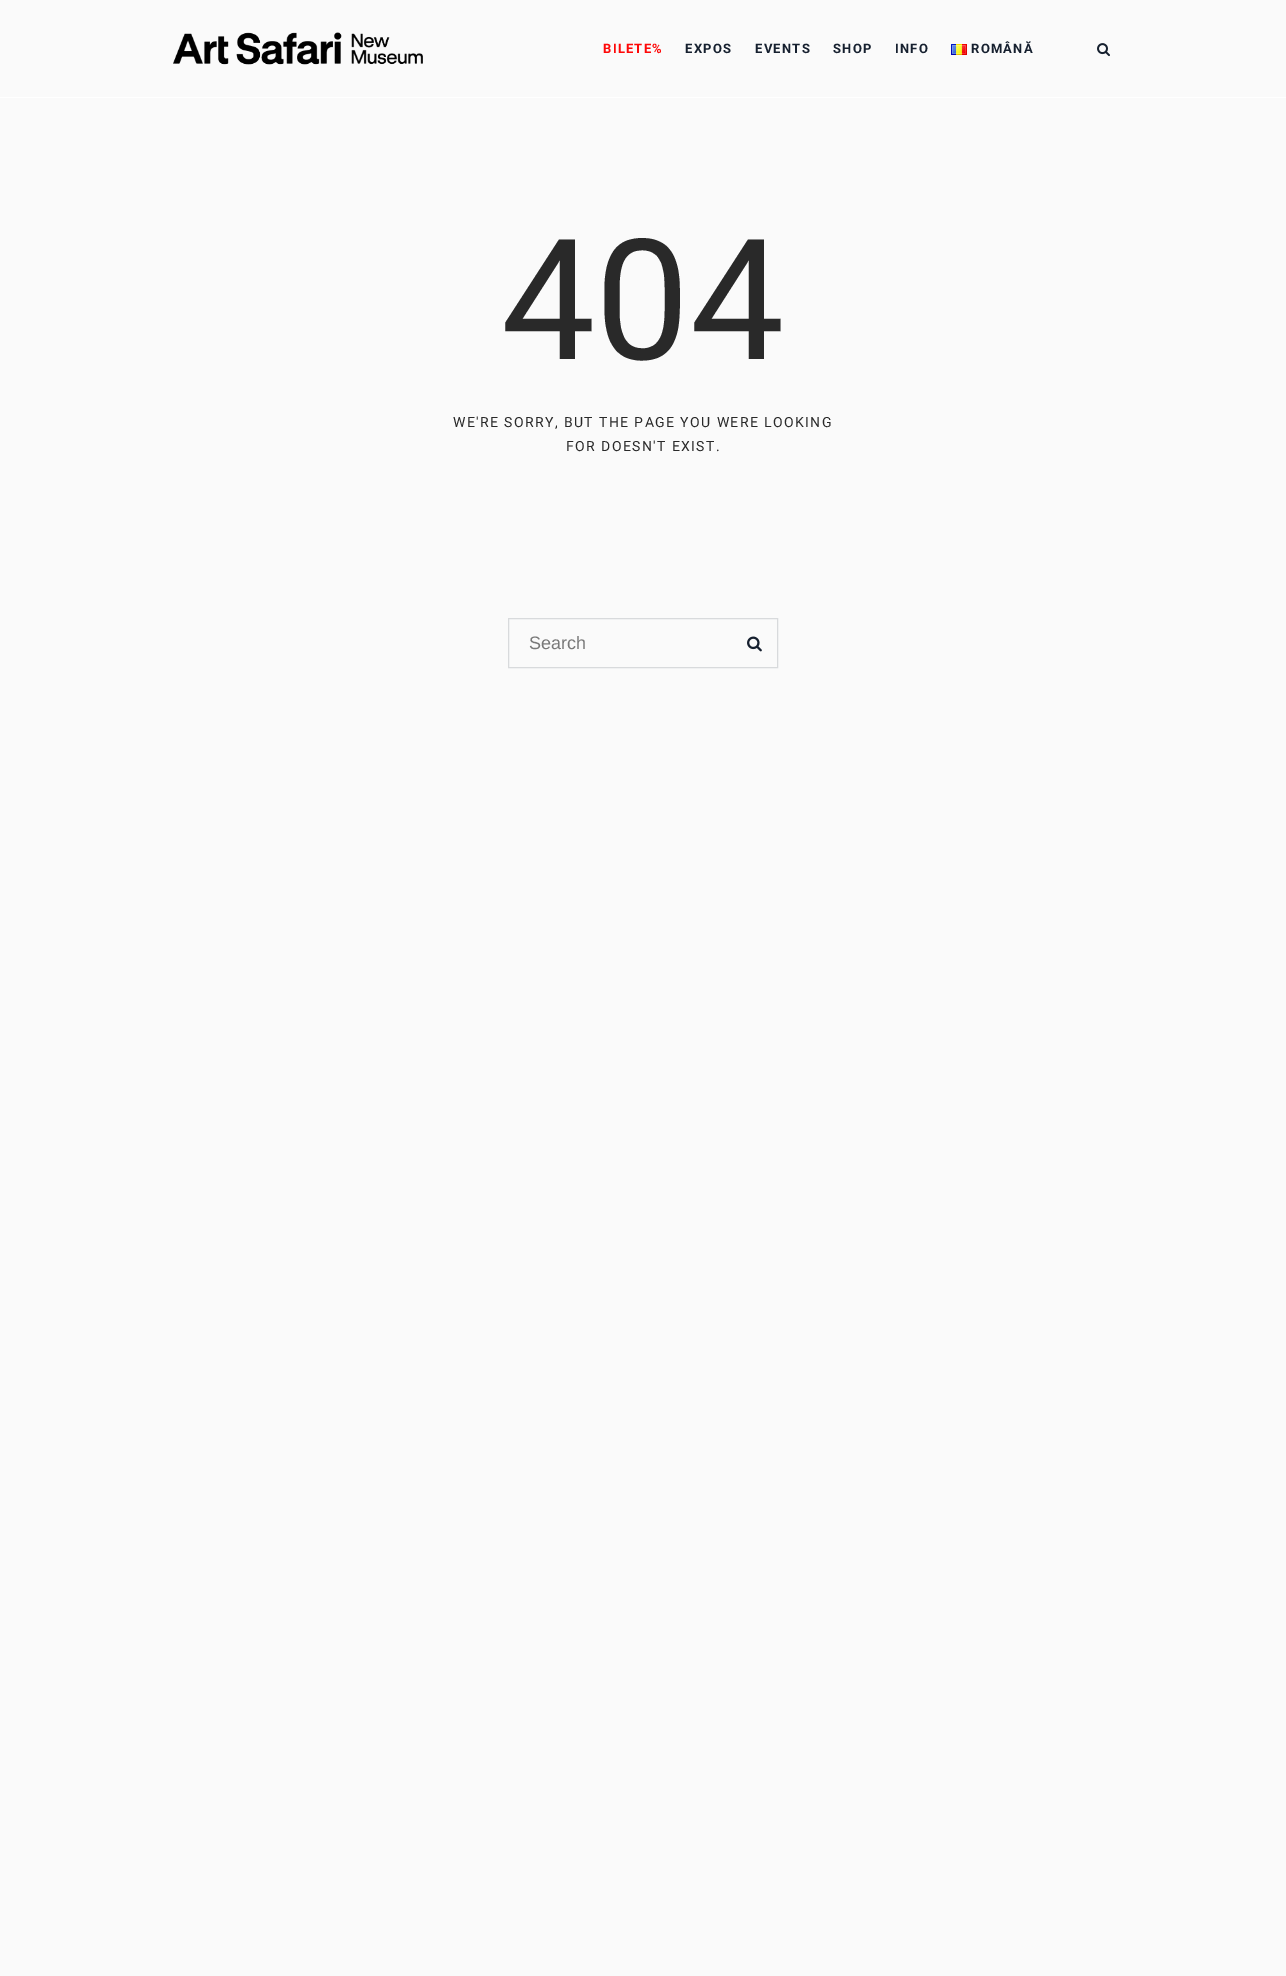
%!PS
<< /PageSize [1286 1976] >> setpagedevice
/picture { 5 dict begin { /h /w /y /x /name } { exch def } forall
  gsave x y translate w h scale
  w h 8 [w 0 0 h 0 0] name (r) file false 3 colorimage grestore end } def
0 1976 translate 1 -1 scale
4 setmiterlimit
0.98 setgray
0 0 1286 1976 rectfill
1 setgray
0 97 1286 1 rectfill
(img1.rgb) 173 32 250 33 picture
/Roboto-Bold [13 0 0 -13 0 0] selectfont
0.996 0.031 0.031 setrgbcolor
603 53 moveto 1.25 0 (BILETE%) ashow
0.086 0.125 0.184 setrgbcolor
685 53 moveto 1.25 0 (EXPOS) ashow
755 53 moveto 1.25 0 (EVENTS) ashow
833 53 moveto 1.25 0 (SHOP) ashow
895 53 moveto 1.25 0 (INFO) ashow
(img2.rgb) 951 44 16 11 picture
971 53 moveto 1.25 0 (ROMÂNĂ) ashow
(img3.rgb) 1097 43 13 14 picture
/Roboto-Regular [168 0 0 -168 0 0] selectfont
0.161 setgray
501 359 moveto (404) show
/Roboto-Regular [14 0 0 -14 0 0] selectfont
453 427 moveto 1.4 0 (WE'RE SORRY, BUT THE PAGE YOU WERE LOOKING) ashow
566 451 moveto 1.4 0 (FOR DOESN'T EXIST.) ashow
0.847 0.855 0.863 setrgbcolor
508.5 618.5 269 49 rectstroke
/LiberationSans-Regular [18 0 0 -18 0 0] selectfont
0.475 setgray
529 649 moveto (Search) show
(img4.rgb) 747 636 15 16 picture
showpage
